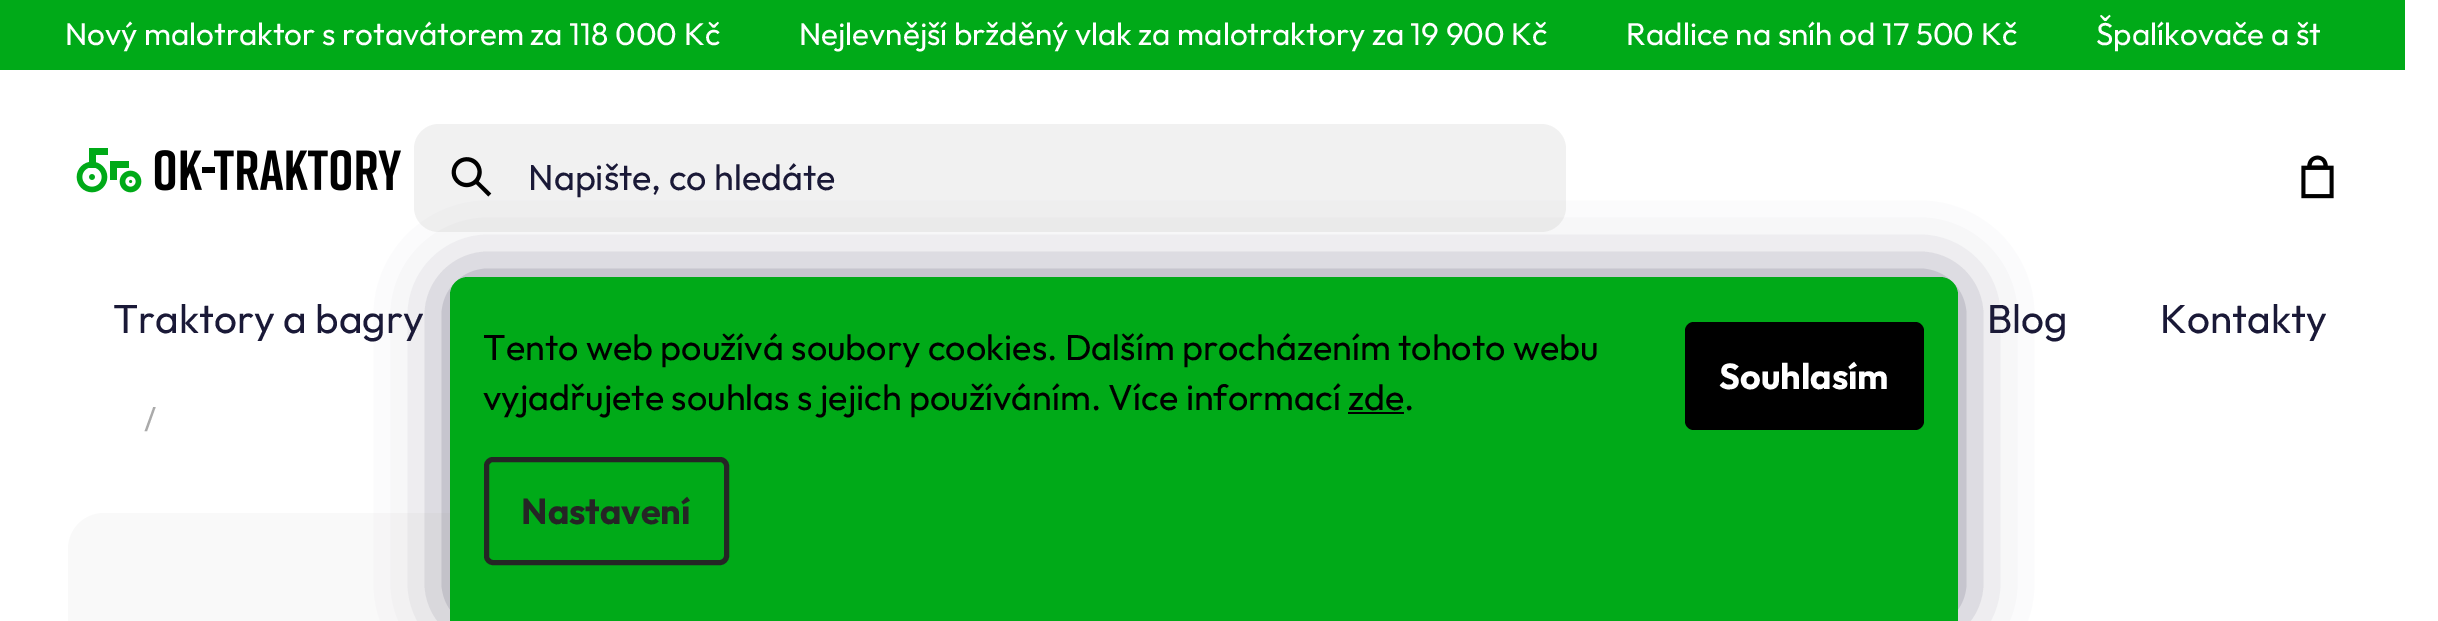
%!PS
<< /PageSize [2438 621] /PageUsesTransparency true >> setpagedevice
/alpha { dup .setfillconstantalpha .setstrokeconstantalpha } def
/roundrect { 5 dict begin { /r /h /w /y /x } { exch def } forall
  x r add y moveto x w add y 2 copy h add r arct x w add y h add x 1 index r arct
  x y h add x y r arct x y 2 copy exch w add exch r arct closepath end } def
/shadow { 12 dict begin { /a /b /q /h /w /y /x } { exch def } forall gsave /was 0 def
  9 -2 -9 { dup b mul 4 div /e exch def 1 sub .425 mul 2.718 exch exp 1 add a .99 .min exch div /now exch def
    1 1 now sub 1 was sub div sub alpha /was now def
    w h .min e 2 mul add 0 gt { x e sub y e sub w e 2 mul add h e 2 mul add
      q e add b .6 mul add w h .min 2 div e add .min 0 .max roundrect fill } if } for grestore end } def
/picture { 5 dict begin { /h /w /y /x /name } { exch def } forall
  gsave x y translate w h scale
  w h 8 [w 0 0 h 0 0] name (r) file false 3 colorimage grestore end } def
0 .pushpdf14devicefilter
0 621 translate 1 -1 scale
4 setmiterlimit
1 setgray
0 0 2438 621 rectfill
0 0.667 0.094 setrgbcolor
0 0 2405 70 rectfill
/Outfit-Regular [31.5 0 0 -31.5 0 0] selectfont
1 setgray
65 45 moveto (Nový malotraktor s rotavátorem za 118 000 Kč) show
799 45 moveto (Nejlevnější bržděný vlak za malotraktory za 19 900 Kč) show
1626 45 moveto (Radlice na sníh od 17 500 Kč) show
2096 45 moveto (Špalíkovače a št) show
(img1.rgb) 76 148 325 45 picture
0.945 setgray
414 124 1152 108 25 roundrect fill
(img2.rgb) 451 157 41 40 picture
/Outfit-Regular [36 0 0 -36 0 0] selectfont
0.102 0.098 0.216 setrgbcolor
528 190 moveto (Napište, co hledáte) show
(img3.rgb) 2301 155 33 44 picture
/Outfit-Regular [40.5 0 0 -40.5 0 0] selectfont
113 333 moveto (Traktory a bagry) show
1987 333 moveto (Blog) show
2160 333 moveto (Kontakty) show
/Outfit-Regular [31.5 0 0 -31.5 0 0] selectfont
0.667 setgray
144 430 moveto (/) show
0.976 setgray
68 513 630 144 36 roundrect fill
0.106 0.098 0.224 setrgbcolor
450 277 1508 344 18 34 0.5 shadow
0 0.667 0.094 setrgbcolor
newpath 468 277 moveto 1940 277 lineto 1950 277 1958 285 1958 295 curveto 1958 621 lineto 450 621 lineto 450 295 lineto 450 285 458 277 468 277 curveto closepath fill
/Outfit-Regular [36 0 0 -36 0 0] selectfont
0 setgray
483 360 moveto (Tento web používá soubory cookies. Dalším procházením tohoto webu) show
483 410 moveto (vyjadřujete souhlas s jejich používáním. Více informací zde.) show
1348 412 56 2 rectfill
0.145 setgray
5 setlinewidth
486.5 459.5 240 103 6.5 roundrect stroke
/Outfit-Bold [36 0 0 -36 0 0] selectfont
521 524 moveto (Nastavení) show
0 setgray
1685 322 239 108 9 roundrect fill
1 setgray
1719 389 moveto (Souhlasím) show
.poppdf14devicefilter showpage
